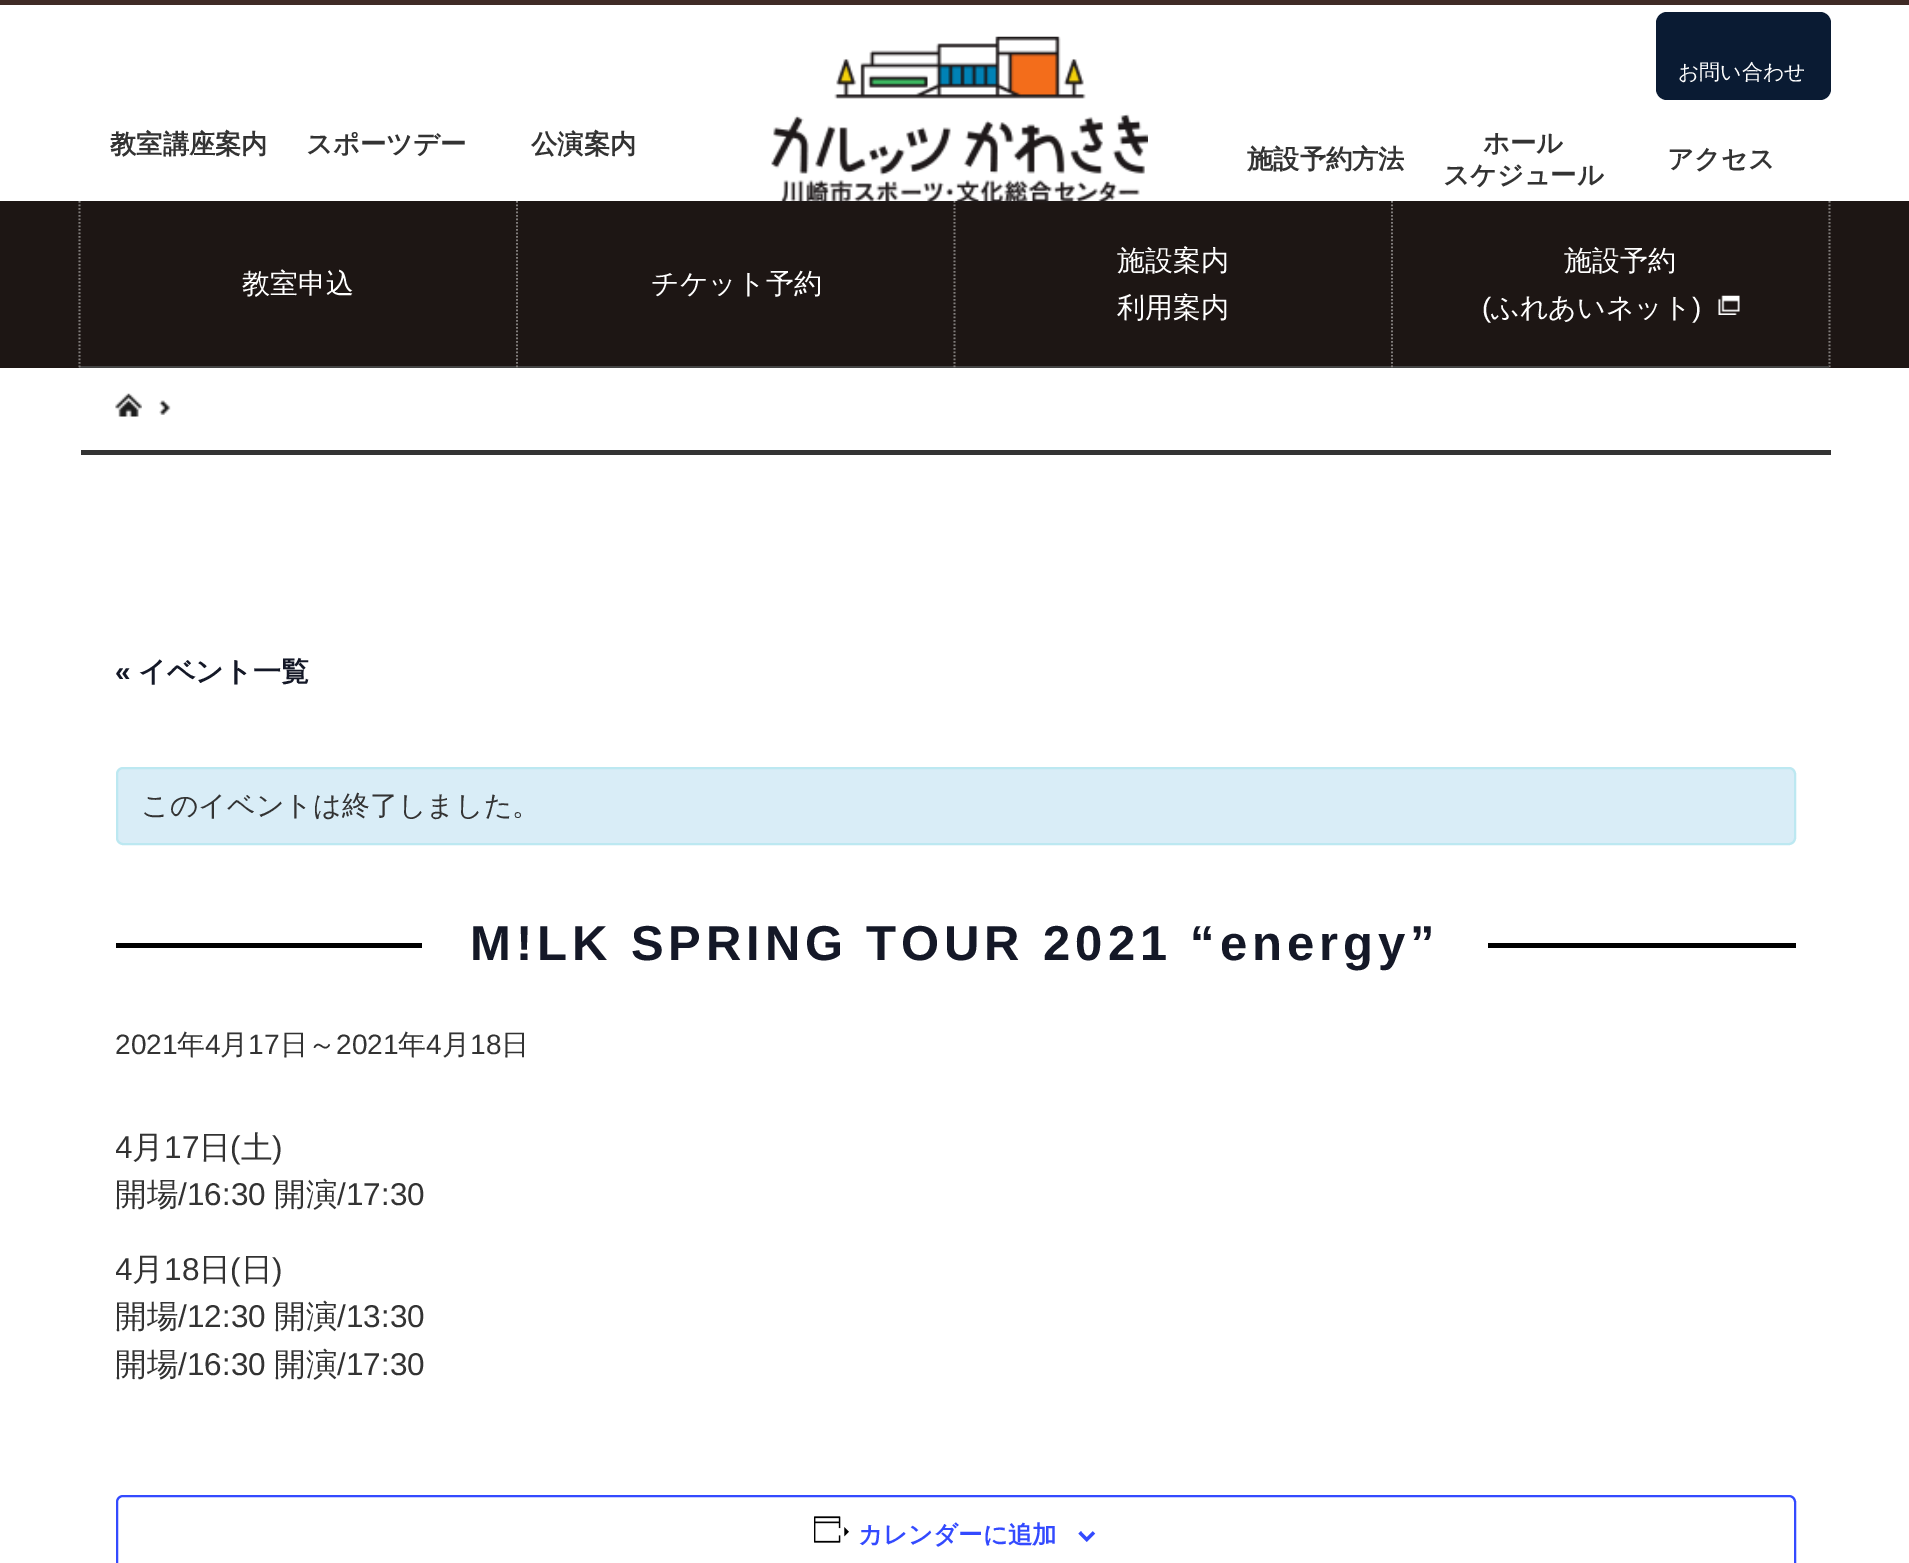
%!PS
<< /PageSize [1909 1563] >> setpagedevice
/roundrect { 5 dict begin { /r /h /w /y /x } { exch def } forall
  x r add y moveto x w add y 2 copy h add r arct x w add y h add x 1 index r arct
  x y h add x y r arct x y 2 copy exch w add exch r arct closepath end } def
/picture { 5 dict begin { /h /w /y /x /name } { exch def } forall
  gsave x y translate w h scale
  w h 8 [w 0 0 h 0 0] name (r) file false 3 colorimage grestore end } def
0 1563 translate 1 -1 scale
4 setmiterlimit
1 setgray
0 0 1909 1563 rectfill
0.247 0.169 0.149 setrgbcolor
0 0 1909 5 rectfill
0.114 0.086 0.078 setrgbcolor
0 201 1909 167 rectfill
0.267 setgray
79 366 875 2 rectfill
0.506 0.49 0.486 setrgbcolor
1.8 setlinewidth
[1.75 1.75] 0 setdash
newpath 1829.5 201 moveto 1829.5 367.5 lineto stroke
0.267 setgray
954 366 875 2 rectfill
0.506 0.49 0.486 setrgbcolor
newpath 954.5 201 moveto 954.5 367.5 lineto stroke
(img1.rgb) 771 36 377 167 picture
0.039 0.106 0.2 setrgbcolor
1656 12 175 88 11 roundrect fill
/WenQuanYiZenHei-Medium [21 0 0 -21 0 0] selectfont
1 setgray
1678 79 moveto (お問い合わせ) show
/WenQuanYiZenHei-Bold [26.25 0 0 -26.25 0 0] selectfont
0.2 setgray
110 153 moveto (教室講座案内) show
306 153 moveto (スポーツデー) show
531 153 moveto (公演案内) show
1247 168 moveto (施設予約方法) show
1483 152 moveto (ホール) show
1443 184 moveto (スケジュール) show
1667 168 moveto (アクセス) show
0.506 0.49 0.486 setrgbcolor
newpath 79.5 201 moveto 79.5 367.5 lineto stroke
/WenQuanYiZenHei-Medium [28 0 0 -28 0 0] selectfont
1 setgray
242 293 moveto (教室申込) show
0.506 0.49 0.486 setrgbcolor
newpath 517 201 moveto 517 367.5 lineto stroke
1 setgray
651 293 moveto (チケット予約) show
1117 270 moveto (施設案内) show
1117 317 moveto (利用案内) show
0.506 0.49 0.486 setrgbcolor
newpath 1392 201 moveto 1392 367.5 lineto stroke
1 setgray
1564 270 moveto (施設予約) show
/LiberationSans-Regular [28 0 0 -28 0 0] selectfont
1482 317 moveto (\() show
/WenQuanYiZenHei-Medium [28 0 0 -28 0 0] selectfont
1491 317 moveto (ふれあいネット) show
/LiberationSans-Regular [28 0 0 -28 0 0] selectfont
1692 317 moveto (\)) show
(img2.rgb) 1718 295 22 20 picture
0.2 setgray
81 450 1750 5 rectfill
(img3.rgb) 115 393 27 24 picture
(img4.rgb) 159 400 12 15 picture
/LiberationSans-Bold [28 0 0 -28 0 0] selectfont
0.078 0.094 0.153 setrgbcolor
115 681 moveto («) show
/WenQuanYiZenHei-Bold [28 0 0 -28 0 0] selectfont
138 681 moveto (イベント一覧) show
0.851 0.929 0.969 setrgbcolor
117 768 1678 76 6 roundrect gsave fill grestore
0.737 0.91 0.945 setrgbcolor
2 setlinewidth
[] 0 setdash
stroke
/WenQuanYiZenHei-Medium [28 0 0 -28 0 0] selectfont
0.2 setgray
141 815 moveto (このイベントは終了しました。) show
0 setgray
116 943 306 5 rectfill
/LiberationSans-Bold [49 0 0 -49 0 0] selectfont
0.078 0.094 0.153 setrgbcolor
470 960 moveto 4.9 0 (M!LK SPRING TOUR 2021 “energy”) ashow
0 setgray
1488 943 308 5 rectfill
/LiberationSans-Regular [28 0 0 -28 0 0] selectfont
0.2 setgray
115 1054 moveto (2021) show
/WenQuanYiZenHei-Medium [28 0 0 -28 0 0] selectfont
177 1054 moveto (年) show
/LiberationSans-Regular [28 0 0 -28 0 0] selectfont
205 1054 moveto (4) show
/WenQuanYiZenHei-Medium [28 0 0 -28 0 0] selectfont
220 1054 moveto (月) show
/LiberationSans-Regular [28 0 0 -28 0 0] selectfont
248 1054 moveto (17) show
/WenQuanYiZenHei-Medium [28 0 0 -28 0 0] selectfont
280 1054 moveto (日～) show
/LiberationSans-Regular [28 0 0 -28 0 0] selectfont
336 1054 moveto (2021) show
/WenQuanYiZenHei-Medium [28 0 0 -28 0 0] selectfont
398 1054 moveto (年) show
/LiberationSans-Regular [28 0 0 -28 0 0] selectfont
426 1054 moveto (4) show
/WenQuanYiZenHei-Medium [28 0 0 -28 0 0] selectfont
442 1054 moveto (月) show
/LiberationSans-Regular [28 0 0 -28 0 0] selectfont
470 1054 moveto (18) show
/WenQuanYiZenHei-Medium [28 0 0 -28 0 0] selectfont
501 1054 moveto (日) show
gsave
116 1125 1680 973 rectclip
/LiberationSans-Regular [31.5 0 0 -31.5 0 0] selectfont
115 1158 moveto (4) show
grestore
/WenQuanYiZenHei-Medium [31.5 0 0 -31.5 0 0] selectfont
132 1158 moveto (月) show
/LiberationSans-Regular [31.5 0 0 -31.5 0 0] selectfont
164 1158 moveto (17) show
/WenQuanYiZenHei-Medium [31.5 0 0 -31.5 0 0] selectfont
199 1158 moveto (日) show
/LiberationSans-Regular [31.5 0 0 -31.5 0 0] selectfont
230 1158 moveto (\() show
/WenQuanYiZenHei-Medium [31.5 0 0 -31.5 0 0] selectfont
241 1158 moveto (土) show
/LiberationSans-Regular [31.5 0 0 -31.5 0 0] selectfont
272 1158 moveto (\)) show
/WenQuanYiZenHei-Medium [31.5 0 0 -31.5 0 0] selectfont
115 1205 moveto (開場) show
/LiberationSans-Regular [31.5 0 0 -31.5 0 0] selectfont
178 1205 moveto (/16:30) show
/WenQuanYiZenHei-Medium [31.5 0 0 -31.5 0 0] selectfont
274 1205 moveto (開演) show
/LiberationSans-Regular [31.5 0 0 -31.5 0 0] selectfont
337 1205 moveto (/17:30) show
gsave
116 1125 1680 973 rectclip
115 1280 moveto (4) show
grestore
/WenQuanYiZenHei-Medium [31.5 0 0 -31.5 0 0] selectfont
132 1280 moveto (月) show
/LiberationSans-Regular [31.5 0 0 -31.5 0 0] selectfont
164 1280 moveto (18) show
/WenQuanYiZenHei-Medium [31.5 0 0 -31.5 0 0] selectfont
199 1280 moveto (日) show
/LiberationSans-Regular [31.5 0 0 -31.5 0 0] selectfont
230 1280 moveto (\() show
/WenQuanYiZenHei-Medium [31.5 0 0 -31.5 0 0] selectfont
241 1280 moveto (日) show
/LiberationSans-Regular [31.5 0 0 -31.5 0 0] selectfont
272 1280 moveto (\)) show
/WenQuanYiZenHei-Medium [31.5 0 0 -31.5 0 0] selectfont
115 1327 moveto (開場) show
/LiberationSans-Regular [31.5 0 0 -31.5 0 0] selectfont
178 1327 moveto (/12:30) show
/WenQuanYiZenHei-Medium [31.5 0 0 -31.5 0 0] selectfont
274 1327 moveto (開演) show
/LiberationSans-Regular [31.5 0 0 -31.5 0 0] selectfont
337 1327 moveto (/13:30) show
/WenQuanYiZenHei-Medium [31.5 0 0 -31.5 0 0] selectfont
115 1375 moveto (開場) show
/LiberationSans-Regular [31.5 0 0 -31.5 0 0] selectfont
178 1375 moveto (/16:30) show
/WenQuanYiZenHei-Medium [31.5 0 0 -31.5 0 0] selectfont
274 1375 moveto (開演) show
/LiberationSans-Regular [31.5 0 0 -31.5 0 0] selectfont
337 1375 moveto (/17:30) show
0.2 0.29 1 setrgbcolor
117 1496 1678 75 6 roundrect stroke
(img5.rgb) 814 1516 35 27 picture
/WenQuanYiZenHei-Bold [24.5 0 0 -24.5 0 0] selectfont
858 1543 moveto (カレンダーに追加) show
(img6.rgb) 1078 1531 18 11 picture
showpage
